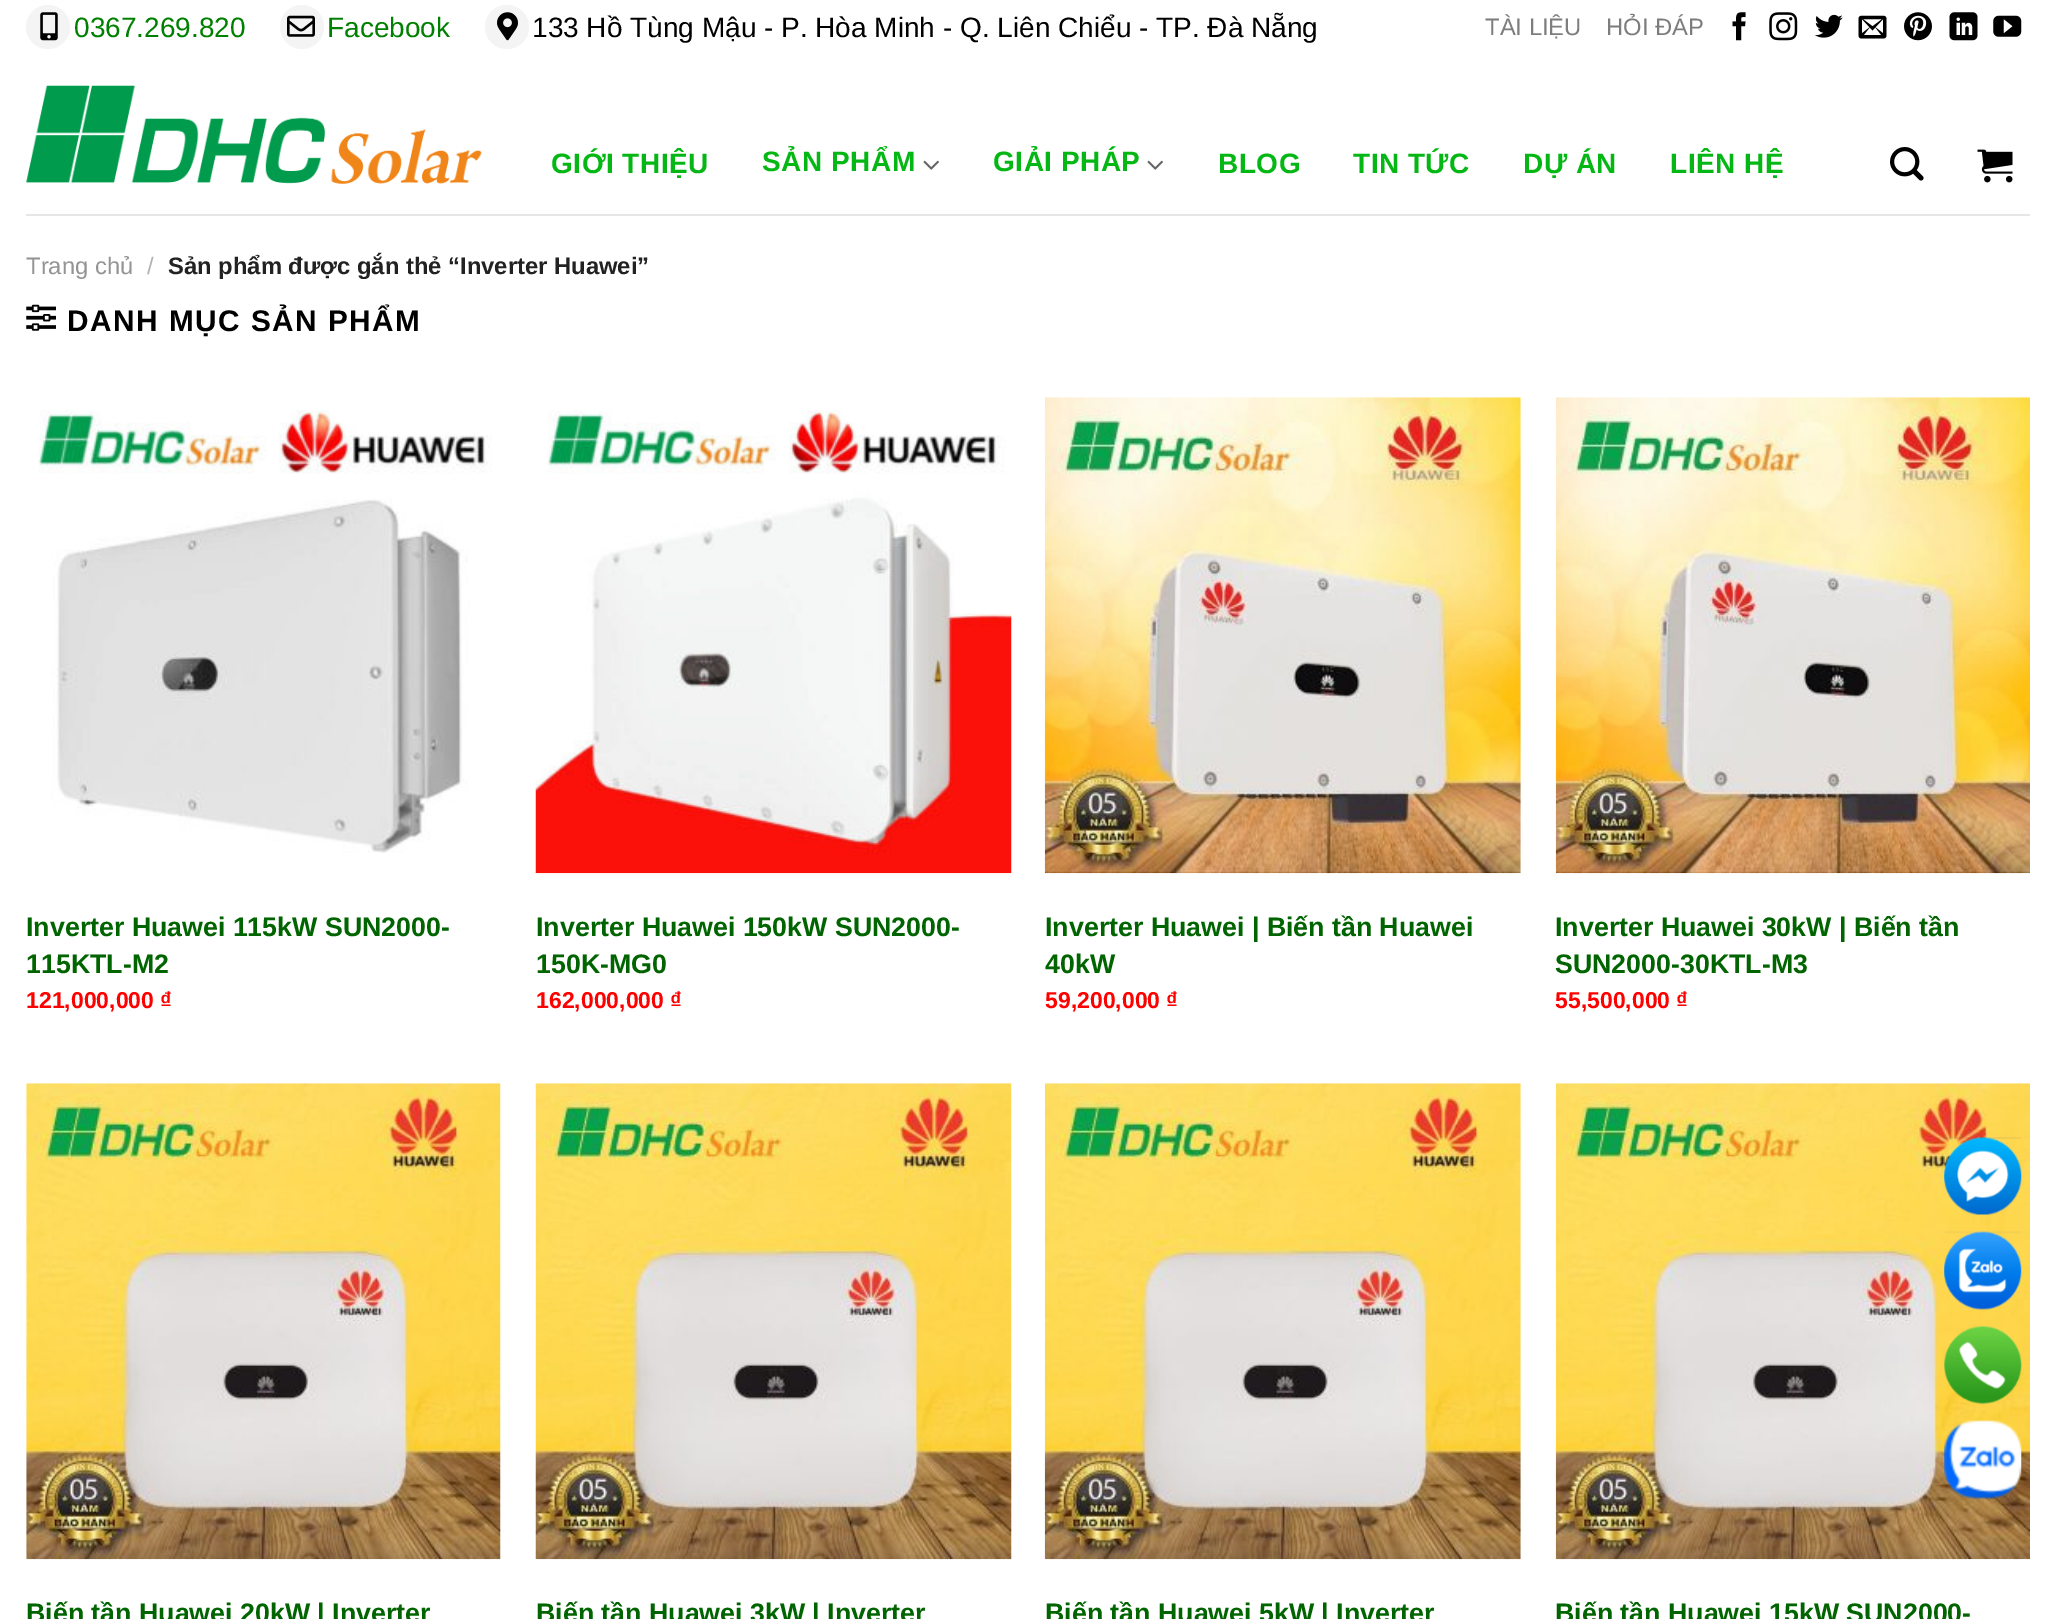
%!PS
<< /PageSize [2055 1619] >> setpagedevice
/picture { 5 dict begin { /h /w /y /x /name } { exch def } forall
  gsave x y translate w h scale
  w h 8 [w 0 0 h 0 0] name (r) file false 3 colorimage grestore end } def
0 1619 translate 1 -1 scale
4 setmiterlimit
1 setgray
0 0 2055 1619 rectfill
0.957 setgray
newpath 48 27 22 0 360 arc closepath fill
(img1.rgb) 40 12 18 29 picture
/LiberationSans-Regular [28 0 0 -28 0 0] selectfont
0 0.502 0 setrgbcolor
74 37 moveto (0367.269.820) show
0.957 setgray
newpath 302 27 22 0 360 arc closepath fill
(img2.rgb) 287 15 28 22 picture
0 0.502 0 setrgbcolor
327 37 moveto (Facebook) show
0.957 setgray
newpath 507 27 22 0 360 arc closepath fill
(img3.rgb) 497 12 21 29 picture
0 setgray
532 37 moveto (133 Hồ Tùng Mậu - P. Hòa Minh - Q. Liên Chiểu - TP. Đà Nẵng) show
/LiberationSans-Regular [23.8 0 0 -23.8 0 0] selectfont
0.49 setgray
1485 35 moveto (TÀI LIỆU) show
1606 35 moveto (HỎI ĐÁP) show
(img4.rgb) 1732 12 14 29 picture
(img5.rgb) 1769 12 29 29 picture
(img6.rgb) 1815 14 28 24 picture
(img7.rgb) 1858 15 29 24 picture
(img8.rgb) 1904 12 28 29 picture
(img9.rgb) 1949 12 29 29 picture
(img10.rgb) 1993 15 29 22 picture
(img11.rgb) 26 85 456 99 picture
/LiberationSans-Bold [28 0 0 -28 0 0] selectfont
0.02 0.718 0.078 setrgbcolor
551 173 moveto 0.5 0 (GIỚI THIỆU) ashow
762 171 moveto 0.5 0 (SẢN PHẨM) ashow
(img12.rgb) 923 160 16 10 picture
993 171 moveto 0.5 0 (GIẢI PHÁP) ashow
(img12.rgb) 1147 160 16 10 picture
1218 173 moveto 0.5 0 (BLOG) ashow
1353 173 moveto 0.5 0 (TIN TỨC) ashow
1523 173 moveto 0.5 0 (DỰ ÁN) ashow
1670 173 moveto 0.5 0 (LIÊN HỆ) ashow
(img13.rgb) 1890 147 34 34 picture
(img14.rgb) 1977 149 36 34 picture
0.902 setgray
26 214 2004 2 rectfill
/LiberationSans-Regular [23.8 0 0 -23.8 0 0] selectfont
0.58 setgray
26 274 moveto (Trang chủ) show
0.698 setgray
147 274 moveto (/) show
/LiberationSans-Bold [23.8 0 0 -23.8 0 0] selectfont
0.133 setgray
168 274 moveto (Sản phẩm được gắn thẻ “Inverter Huawei”) show
(img15.rgb) 26 304 30 27 picture
/LiberationSans-Bold [29.75 0 0 -29.75 0 0] selectfont
0 setgray
67 331 moveto 1.5 0 (DANH MỤC SẢN PHẨM) ashow
(img16.rgb) 38 410 454 443 picture
/LiberationSans-Bold [26.75 0 0 -26.75 0 0] selectfont
0 0.392 0 setrgbcolor
26 936 moveto (Inverter Huawei 115kW SUN2000-) show
26 973 moveto (115KTL-M2) show
/LiberationSans-Bold [23 0 0 -23 0 0] selectfont
1 0 0 setrgbcolor
26 1008 moveto (121,000,000 ₫) show
(img17.rgb) 535 410 477 464 picture
/LiberationSans-Bold [26.75 0 0 -26.75 0 0] selectfont
0 0.392 0 setrgbcolor
536 936 moveto (Inverter Huawei 150kW SUN2000-) show
536 973 moveto (150K-MG0) show
/LiberationSans-Bold [23 0 0 -23 0 0] selectfont
1 0 0 setrgbcolor
536 1008 moveto (162,000,000 ₫) show
(img18.rgb) 1044 397 477 477 picture
/LiberationSans-Bold [26.75 0 0 -26.75 0 0] selectfont
0 0.392 0 setrgbcolor
1045 936 moveto (Inverter Huawei | Biến tần Huawei) show
1045 973 moveto (40kW) show
/LiberationSans-Bold [23 0 0 -23 0 0] selectfont
1 0 0 setrgbcolor
1045 1008 moveto (59,200,000 ₫) show
(img19.rgb) 1555 397 475 477 picture
/LiberationSans-Bold [26.75 0 0 -26.75 0 0] selectfont
0 0.392 0 setrgbcolor
1555 936 moveto (Inverter Huawei 30kW | Biến tần) show
1555 973 moveto (SUN2000-30KTL-M3) show
/LiberationSans-Bold [23 0 0 -23 0 0] selectfont
1 0 0 setrgbcolor
1555 1008 moveto (55,500,000 ₫) show
(img20.rgb) 26 1083 475 477 picture
/LiberationSans-Bold [26.75 0 0 -26.75 0 0] selectfont
0 0.392 0 setrgbcolor
26 1622 moveto (Biến tần Huawei 20kW | Inverter) show
(img21.rgb) 535 1083 477 477 picture
536 1622 moveto (Biến tần Huawei 3kW | Inverter) show
(img22.rgb) 1044 1083 477 477 picture
1045 1622 moveto (Biến tần Huawei 5kW | Inverter) show
(img23.rgb) 1555 1083 475 477 picture
1555 1622 moveto (Biến tần Huawei 15kW SUN2000-) show
(img24.rgb) 1944 1137 78 78 picture
(img25.rgb) 1944 1231 78 79 picture
(img26.rgb) 1944 1326 78 78 picture
(img27.rgb) 1944 1420 78 79 picture
showpage
